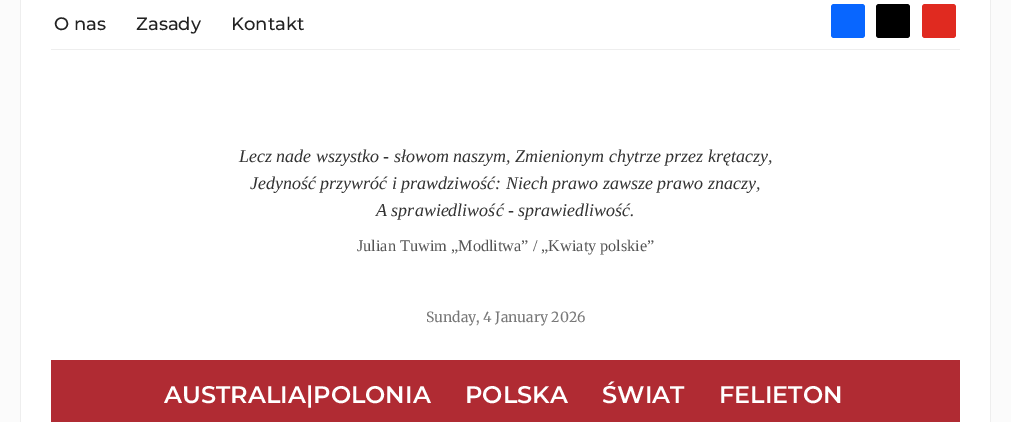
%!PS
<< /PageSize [1011 422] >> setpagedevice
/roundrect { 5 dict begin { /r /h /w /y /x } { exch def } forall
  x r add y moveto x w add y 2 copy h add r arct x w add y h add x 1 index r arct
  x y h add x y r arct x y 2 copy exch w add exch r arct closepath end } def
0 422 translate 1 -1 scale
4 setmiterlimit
0.984 setgray
0 0 1011 422 rectfill
1 setgray
21 0 969 422 rectfill
0.933 setgray
990 0 1 422 rectfill
20 0 1 422 rectfill
51 49 909 1 rectfill
/Montserrat-Medium [18 0 0 -18 0 0] selectfont
0.133 setgray
54 30 moveto (O nas) show
136 30 moveto (Zasady) show
231 30 moveto (Kontakt) show
0.031 0.4 1 setrgbcolor
831 4 34 34 3 roundrect fill
0 setgray
876 4 34 34 3 roundrect fill
0.878 0.165 0.125 setrgbcolor
922 4 34 34 3 roundrect fill
/LiberationSerif-Italic [18 0 0 -18 0 0] selectfont
0.2 setgray
239 162 moveto (Lecz nade wszystko - słowom naszym, Zmienionym chytrze przez krętaczy,) show
250 189 moveto (Jedyność przywróć i prawdziwość: Niech prawo zawsze prawo znaczy,) show
376 216 moveto (A sprawiedliwość - sprawiedliwość.) show
/LiberationSerif-Regular [16.25 0 0 -16.25 0 0] selectfont
0.333 setgray
357 251 moveto (Julian Tuwim „Modlitwa” / „Kwiaty polskie”) show
/Merriweather-Regular [14 0 0 -14 0 0] selectfont
0.467 setgray
426 322 moveto (Sunday, 4 January 2026) show
0.69 0.169 0.2 setrgbcolor
51 360 909 62 rectfill
/Montserrat-SemiBold [24 0 0 -24 0 0] selectfont
1 setgray
164 403 moveto (AUSTRALIA|POLONIA) show
465 403 moveto (POLSKA) show
602 403 moveto (ŚWIAT) show
719 403 moveto (FELIETON) show
showpage
